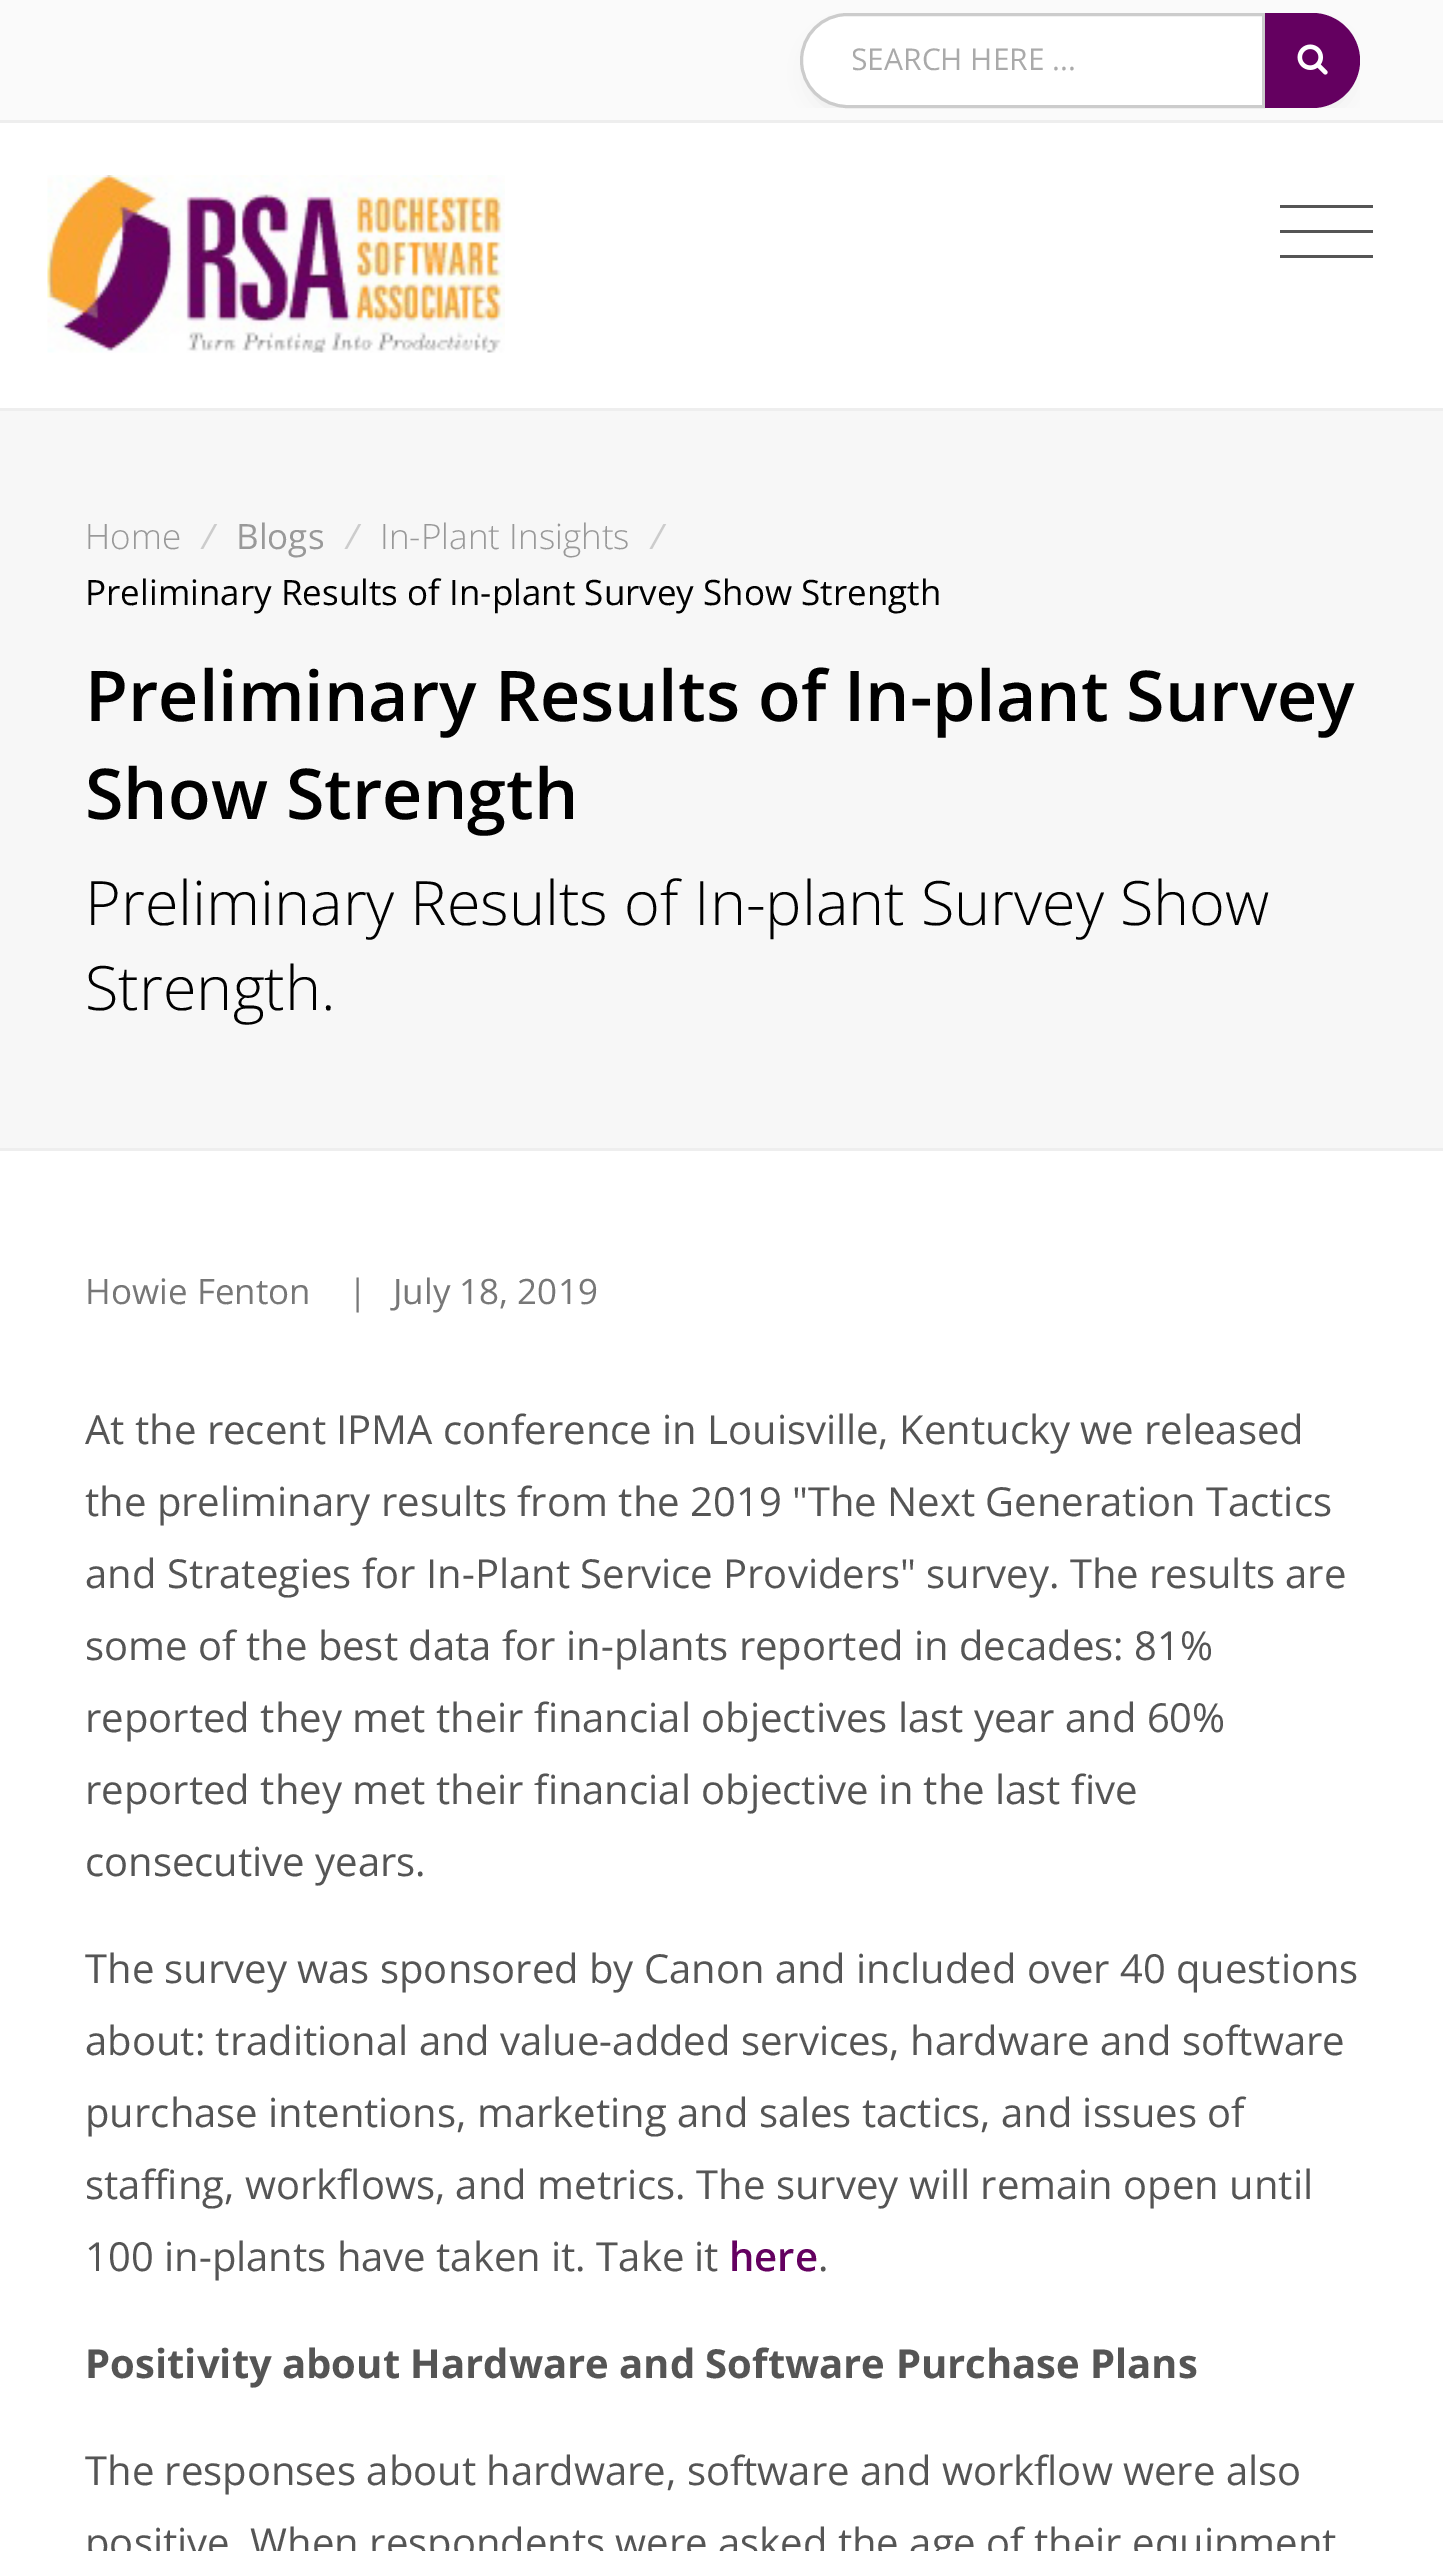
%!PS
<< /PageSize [1443 2551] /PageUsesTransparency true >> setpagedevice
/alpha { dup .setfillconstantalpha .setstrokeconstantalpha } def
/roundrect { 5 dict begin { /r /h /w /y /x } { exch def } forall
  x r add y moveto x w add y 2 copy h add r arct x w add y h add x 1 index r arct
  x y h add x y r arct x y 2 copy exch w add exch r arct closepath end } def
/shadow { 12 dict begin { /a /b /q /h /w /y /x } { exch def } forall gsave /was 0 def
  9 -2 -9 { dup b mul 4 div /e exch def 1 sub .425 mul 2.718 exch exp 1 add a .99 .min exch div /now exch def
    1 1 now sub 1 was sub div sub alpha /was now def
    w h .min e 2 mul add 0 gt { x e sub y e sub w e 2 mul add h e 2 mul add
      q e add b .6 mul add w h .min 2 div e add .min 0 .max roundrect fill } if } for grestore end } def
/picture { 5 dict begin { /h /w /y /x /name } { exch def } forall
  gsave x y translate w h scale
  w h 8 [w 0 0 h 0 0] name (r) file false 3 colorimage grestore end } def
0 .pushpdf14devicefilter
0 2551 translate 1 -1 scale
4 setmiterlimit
0.969 setgray
0 0 1443 2551 rectfill
0.98 setgray
0 0 1443 120 rectfill
0.933 setgray
0 120 1443 3 rectfill
1 setgray
0 123 1443 285 rectfill
gsave
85 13 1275 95 rectclip
0 setgray
815 40 530 65 32.5 12.5 0.1 shadow
grestore
newpath 847.5 14.5 moveto 1263.5 14.5 lineto 1263.5 106.5 lineto 847.5 106.5 lineto 822 106.5 801.5 86 801.5 60.5 curveto 801.5 35 822 14.5 847.5 14.5 curveto closepath gsave fill grestore
0.8 setgray
3 setlinewidth
stroke
gsave
853 38 385 42 rectclip
/OpenSans-Regular [30 0 0 -30 0 0] selectfont
0.667 setgray
851 70 moveto (SEARCH HERE ...) show
grestore
0.392 0 0.376 setrgbcolor
newpath 1265 13 moveto 1312.5 13 lineto 1338.5 13 1360 34.5 1360 60.5 curveto 1360 86.5 1338.5 108 1312.5 108 curveto 1265 108 lineto closepath fill
(img1.rgb) 1297 44 31 31 picture
(img2.rgb) 47 175 458 178 picture
0.333 setgray
1280 205 93 3 rectfill
1280 230 93 3 rectfill
1280 255 93 3 rectfill
0.933 setgray
0 408 1443 3 rectfill
/OpenSans-Light [35 0 0 -35 0 0] selectfont
0.6 setgray
85 549 moveto (Home) show
/OpenSans-Italic [35 0 0 -35 0 0] selectfont
0.8 setgray
202 549 moveto (/) show
/OpenSans-Regular [35 0 0 -35 0 0] selectfont
0.6 setgray
236 549 moveto (Blogs) show
/OpenSans-Italic [35 0 0 -35 0 0] selectfont
0.8 setgray
346 549 moveto (/) show
/OpenSans-Light [35 0 0 -35 0 0] selectfont
0.6 setgray
380 549 moveto (In-Plant Insights) show
/OpenSans-Italic [35 0 0 -35 0 0] selectfont
0.8 setgray
651 549 moveto (/) show
/OpenSans-Regular [35 0 0 -35 0 0] selectfont
0 setgray
85 605 moveto (Preliminary Results of In-plant Survey Show Strength) show
/OpenSans-SemiBold [70 0 0 -70 0 0] selectfont
85 721 moveto (Preliminary Results of In-plant Survey) show
85 819 moveto (Show Strength) show
/OpenSans-Light [61.25 0 0 -61.25 0 0] selectfont
85 925 moveto (Preliminary Results of In-plant Survey Show) show
85 1010 moveto (Strength.) show
1 setgray
0 1151 1443 1400 rectfill
0.933 setgray
0 1148 1443 3 rectfill
/OpenSans-Regular [35 0 0 -35 0 0] selectfont
0.467 setgray
85 1304 moveto (Howie Fenton) show
348 1304 moveto (|) show
393 1304 moveto (July 18, 2019) show
/OpenSans-Regular [40 0 0 -40 0 0] selectfont
0.333 setgray
85 1444 moveto (At the recent IPMA conference in Louisville, Kentucky we released) show
85 1516 moveto (the preliminary results from the 2019 "The Next Generation Tactics) show
85 1588 moveto (and Strategies for In-Plant Service Providers" survey. The results are) show
85 1660 moveto (some of the best data for in-plants reported in decades: 81%) show
85 1732 moveto (reported they met their financial objectives last year and 60%) show
85 1804 moveto (reported they met their financial objective in the last five) show
85 1876 moveto (consecutive years.) show
85 1983 moveto (The survey was sponsored by Canon and included over 40 questions) show
85 2055 moveto (about: traditional and value-added services, hardware and software) show
85 2127 moveto (purchase intentions, marketing and sales tactics, and issues of) show
85 2199 moveto (staffing, workflows, and metrics. The survey will remain open until) show
85 2271 moveto (100 in-plants have taken it. Take it) show
/OpenSans-SemiBold [40 0 0 -40 0 0] selectfont
0.392 0 0.376 setrgbcolor
729 2271 moveto (here) show
/OpenSans-Regular [40 0 0 -40 0 0] selectfont
0.333 setgray
818 2271 moveto (.) show
/OpenSans-Bold [40 0 0 -40 0 0] selectfont
85 2378 moveto (Positivity about Hardware and Software Purchase Plans) show
/OpenSans-Regular [40 0 0 -40 0 0] selectfont
85 2485 moveto (The responses about hardware, software and workflow were also) show
85 2557 moveto (positive. When respondents were asked the age of their equipment) show
.poppdf14devicefilter showpage
